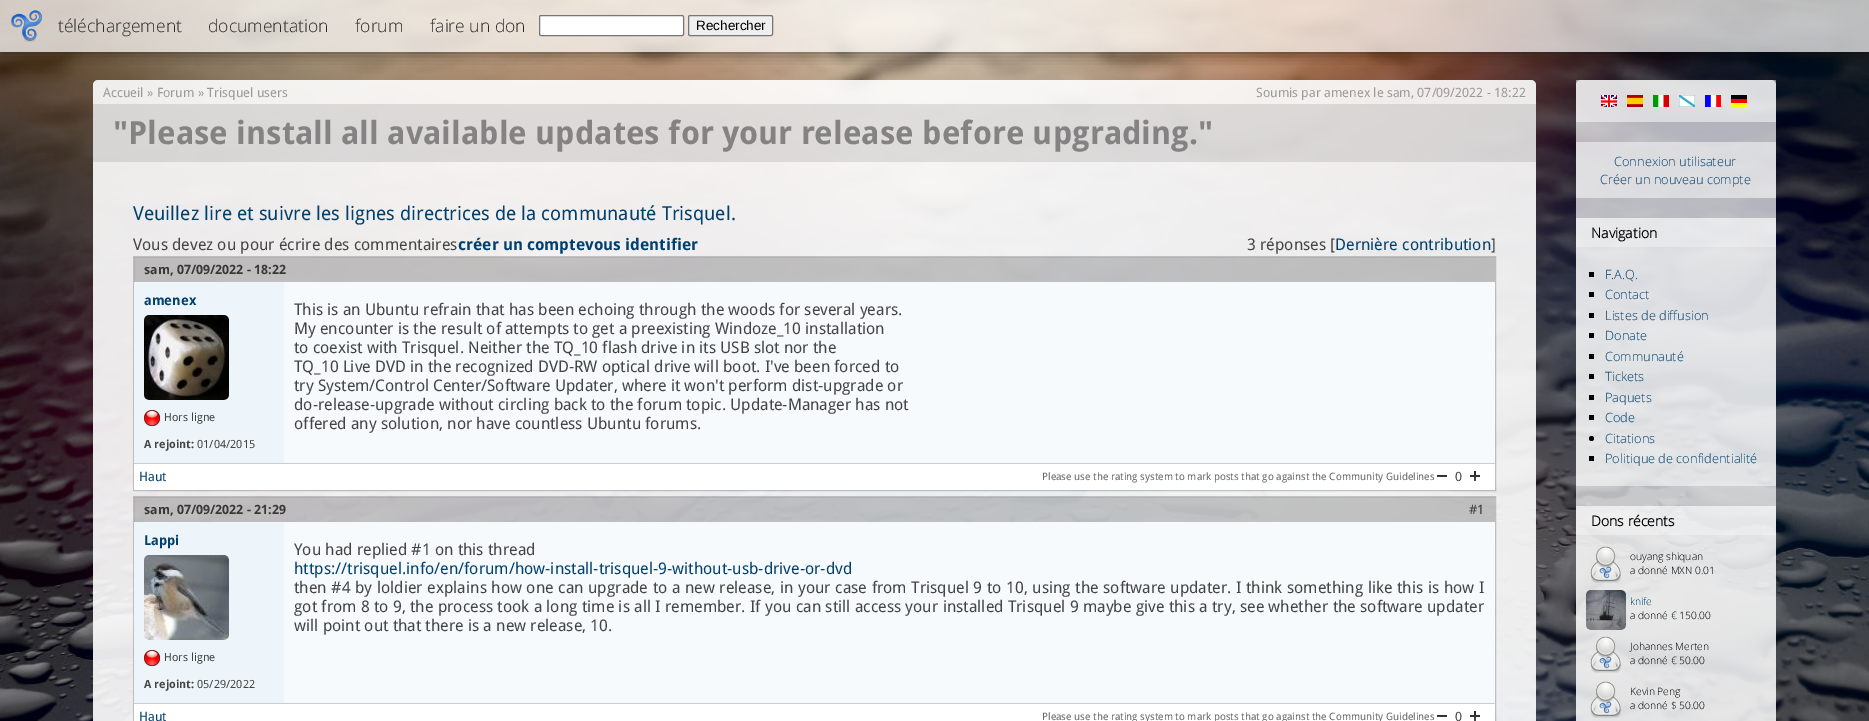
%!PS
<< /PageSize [1869 721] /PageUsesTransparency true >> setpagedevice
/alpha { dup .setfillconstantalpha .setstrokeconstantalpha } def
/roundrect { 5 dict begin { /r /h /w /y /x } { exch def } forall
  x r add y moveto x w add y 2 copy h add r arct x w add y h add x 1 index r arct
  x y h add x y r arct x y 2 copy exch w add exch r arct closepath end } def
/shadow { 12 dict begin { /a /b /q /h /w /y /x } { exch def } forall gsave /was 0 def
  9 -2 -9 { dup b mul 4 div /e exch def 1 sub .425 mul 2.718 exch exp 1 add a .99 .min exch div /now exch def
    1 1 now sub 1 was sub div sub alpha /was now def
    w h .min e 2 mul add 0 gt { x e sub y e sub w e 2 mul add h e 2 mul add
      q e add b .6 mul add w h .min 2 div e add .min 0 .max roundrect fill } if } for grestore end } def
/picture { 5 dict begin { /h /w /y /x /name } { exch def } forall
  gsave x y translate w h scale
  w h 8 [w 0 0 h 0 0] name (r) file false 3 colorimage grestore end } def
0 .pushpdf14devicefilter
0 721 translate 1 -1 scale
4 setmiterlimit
1 setgray
0 0 1869 721 rectfill
(img1.rgb) 0 0 1869 721 picture
gsave
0 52 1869 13 rectclip
0 setgray
0 0 1869 52 0 7.5 0.5 shadow
grestore
0.7 alpha
0 0 1869 52 rectfill
1 alpha
(img2.rgb) 11 10 32 32 picture
/OpenSans-Light [17.5 0 0 -17.5 0 0] selectfont
0.169 0.165 0.157 setrgbcolor
58 32 moveto (téléchargement) show
208 32 moveto (documentation) show
355 32 moveto (forum) show
430 32 moveto (faire un don) show
1 setgray
539.5 15.5 144 20 1.5 roundrect gsave fill grestore
0.463 setgray
stroke
0.937 setgray
688.5 15.5 84 20 1.5 roundrect gsave fill grestore
0.463 setgray
stroke
/LiberationSans-Regular [13.5 0 0 -13.5 0 0] selectfont
0 setgray
696 30 moveto (Rechercher) show
0.9 alpha
1 setgray
93 80 1443 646 5 roundrect fill
/DroidSans-Regular [12.8 0 0 -12.8 0 0] selectfont
1 alpha
0.6 setgray
103 97 moveto (Accueil » Forum » Trisquel users) show
1256 97 moveto (Soumis par amenex le sam, 07/09/2022 - 18:22) show
0.1 alpha
0 setgray
93 104 1443 58 rectfill
/DroidSans-Bold [32 0 0 -32 0 0] selectfont
1 alpha
0.518 0.51 0.51 setrgbcolor
113 144 moveto ("Please install all available updates for your release before upgrading.") show
/DroidSans-Regular [19.2 0 0 -19.2 0 0] selectfont
0 0.251 0.431 setrgbcolor
133 220 moveto (Veuillez lire et suivre les lignes directrices de la communauté Trisquel.) show
/DroidSans-Regular [16 0 0 -16 0 0] selectfont
0.267 setgray
133 250 moveto (Vous devez ou pour écrire des commentaires) show
/DroidSans-Bold [16 0 0 -16 0 0] selectfont
0 0.251 0.431 setrgbcolor
585 250 moveto (vous identifier) show
458 250 moveto (créer un compte) show
/DroidSans-Regular [16 0 0 -16 0 0] selectfont
0.267 setgray
1247 250 moveto (3 réponses [) show
0 0.251 0.431 setrgbcolor
1335 250 moveto (Dernière contribution) show
0.267 setgray
1491 250 moveto (]) show
0.2 alpha
0 setgray
133.5 256.5 1362 234 rectstroke
134 257 1361 25 rectfill
/DroidSans-Bold [12.8 0 0 -12.8 0 0] selectfont
1 alpha
0.224 0.22 0.22 setrgbcolor
144 274 moveto (sam, 07/09/2022 - 18:22) show
0.929 0.961 0.98 setrgbcolor
134 282 150 181 rectfill
/DroidSans-Bold [13.5 0 0 -13.5 0 0] selectfont
0 0.251 0.431 setrgbcolor
144 305 moveto (amenex) show
(img3.rgb) 144 315 85 85 picture
(img4.rgb) 144 410 16 16 picture
/DroidSans-Regular [11.25 0 0 -11.25 0 0] selectfont
0.267 setgray
164 421 moveto (Hors ligne) show
/DroidSans-Bold [11.25 0 0 -11.25 0 0] selectfont
144 448 moveto (A rejoint:) show
/DroidSans-Regular [11.25 0 0 -11.25 0 0] selectfont
197 448 moveto (01/04/2015) show
0.965 0.98 0.988 setrgbcolor
284 282 1211 181 rectfill
/DroidSans-Regular [16 0 0 -16 0 0] selectfont
0.267 setgray
294 315 moveto (This is an Ubuntu refrain that has been echoing through the woods for several years.) show
294 334 moveto (My encounter is the result of attempts to get a preexisting Windoze_10 installation) show
294 353 moveto (to coexist with Trisquel. Neither the TQ_10 flash drive in its USB slot nor the) show
294 372 moveto (TQ_10 Live DVD in the recognized DVD-RW optical drive will boot. I've been forced to) show
294 391 moveto (try System/Control Center/Software Updater, where it won't perform dist-upgrade or) show
294 410 moveto (do-release-upgrade without circling back to the forum topic. Update-Manager has not) show
294 429 moveto (offered any solution, nor have countless Ubuntu forums.) show
1 setgray
134 464 1361 26 rectfill
0.8 setgray
134 463 1361 1 rectfill
/DroidSans-Regular [12.8 0 0 -12.8 0 0] selectfont
0 0.251 0.431 setrgbcolor
139 481 moveto (Haut) show
/DroidSans-Regular [10.25 0 0 -10.25 0 0] selectfont
0.4 setgray
1042 480 moveto (Please use the rating system to mark posts that go against the Community Guidelines) show
(img5.rgb) 1437 475 10 2 picture
/DroidSans-Regular [12.8 0 0 -12.8 0 0] selectfont
0.267 setgray
1455 481 moveto (0) show
(img6.rgb) 1470 471 10 10 picture
0.2 alpha
0 setgray
133.5 496.5 1362 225 rectstroke
134 497 1361 25 rectfill
/DroidSans-Bold [12.8 0 0 -12.8 0 0] selectfont
1 alpha
0.224 0.22 0.22 setrgbcolor
144 514 moveto (sam, 07/09/2022 - 21:29) show
/DroidSans-Regular [12.8 0 0 -12.8 0 0] selectfont
1469 514 moveto (#1) show
0.929 0.961 0.98 setrgbcolor
134 522 150 181 rectfill
/DroidSans-Bold [13.5 0 0 -13.5 0 0] selectfont
0 0.251 0.431 setrgbcolor
144 545 moveto (Lappi) show
(img7.rgb) 144 555 85 85 picture
(img4.rgb) 144 650 16 16 picture
/DroidSans-Regular [11.25 0 0 -11.25 0 0] selectfont
0.267 setgray
164 661 moveto (Hors ligne) show
/DroidSans-Bold [11.25 0 0 -11.25 0 0] selectfont
144 688 moveto (A rejoint:) show
/DroidSans-Regular [11.25 0 0 -11.25 0 0] selectfont
197 688 moveto (05/29/2022) show
0.965 0.98 0.988 setrgbcolor
284 522 1211 181 rectfill
/DroidSans-Regular [16 0 0 -16 0 0] selectfont
0.267 setgray
294 555 moveto (You had replied #1 on this thread) show
0 0.251 0.431 setrgbcolor
294 574 moveto (https://trisquel.info/en/forum/how-install-trisquel-9-without-usb-drive-or-dvd) show
0.267 setgray
294 593 moveto 0.4 0 32 (then #4 by loldier explains how one can upgrade to a new release, in your case from Trisquel 9 to 10, using the software updater. I think something like this is how I) widthshow
294 612 moveto 0.15 0 32 (got from 8 to 9, the process took a long time is all I remember. If you can still access your installed Trisquel 9 maybe give this a try, see whether the software updater) widthshow
294 631 moveto (will point out that there is a new release, 10.) show
1 setgray
134 704 1361 17 rectfill
0.8 setgray
134 703 1361 1 rectfill
/DroidSans-Regular [12.8 0 0 -12.8 0 0] selectfont
0 0.251 0.431 setrgbcolor
139 721 moveto (Haut) show
/DroidSans-Regular [10.25 0 0 -10.25 0 0] selectfont
0.4 setgray
1042 720 moveto (Please use the rating system to mark posts that go against the Community Guidelines) show
(img5.rgb) 1437 715 10 2 picture
/DroidSans-Regular [12.8 0 0 -12.8 0 0] selectfont
0.267 setgray
1455 721 moveto (0) show
(img6.rgb) 1470 711 10 10 picture
0.7 alpha
1 setgray
1576 80 200 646 5 roundrect fill
0.5 alpha
1576 80 200 42 rectfill
1 alpha
(img8.rgb) 1601 95 16 12 picture
(img9.rgb) 1627 95 16 12 picture
(img10.rgb) 1653 95 16 12 picture
(img11.rgb) 1679 95 16 12 picture
(img12.rgb) 1705 95 16 12 picture
(img13.rgb) 1731 95 16 12 picture
0.5 alpha
1576 142 200 56 rectfill
/OpenSans-Light [12.8 0 0 -12.8 0 0] selectfont
1 alpha
0 0.251 0.431 setrgbcolor
1614 166 moveto (Connexion utilisateur) show
1600 184 moveto (Créer un nouveau compte) show
0.5 alpha
1 setgray
1576 218 200 268 rectfill
0.3 alpha
1576 218 200 29 rectfill
/OpenSans-Bold [14 0 0 -14 0 0] selectfont
1 alpha
0 setgray
1591 238 moveto (Navigation) show
1589 272 5 5 rectfill
/OpenSans-Light [12.8 0 0 -12.8 0 0] selectfont
0 0.251 0.431 setrgbcolor
1605 279 moveto (F.A.Q.) show
0 setgray
1589 292 5 5 rectfill
0 0.251 0.431 setrgbcolor
1605 299 moveto (Contact) show
0 setgray
1589 313 5 5 rectfill
0 0.251 0.431 setrgbcolor
1605 320 moveto (Listes de diffusion) show
0 setgray
1589 333 5 5 rectfill
0 0.251 0.431 setrgbcolor
1605 340 moveto (Donate) show
0 setgray
1589 354 5 5 rectfill
0 0.251 0.431 setrgbcolor
1605 361 moveto (Communauté) show
0 setgray
1589 374 5 5 rectfill
0 0.251 0.431 setrgbcolor
1605 381 moveto (Tickets) show
0 setgray
1589 395 5 5 rectfill
0 0.251 0.431 setrgbcolor
1605 402 moveto (Paquets) show
0 setgray
1589 415 5 5 rectfill
0 0.251 0.431 setrgbcolor
1605 422 moveto (Code) show
0 setgray
newpath 1591.5 438.5 2.5 0 360 arc closepath fill
0 0.251 0.431 setrgbcolor
1605 443 moveto (Citations) show
0 setgray
1589 456 5 5 rectfill
0 0.251 0.431 setrgbcolor
1605 463 moveto (Politique de confidentialité) show
0.5 alpha
1 setgray
1576 506 200 215 rectfill
0.3 alpha
1576 506 200 29 rectfill
/OpenSans-Bold [14 0 0 -14 0 0] selectfont
1 alpha
0 setgray
1591 526 moveto (Dons récents) show
(img14.rgb) 1590 546 31 37 picture
/OpenSans-Light [10.25 0 0 -10.25 0 0] selectfont
1630 560 moveto (ouyang shiquan) show
1630 574 moveto (a donné MXN 0.01) show
(img15.rgb) 1586 590 40 40 picture
0 0.251 0.431 setrgbcolor
1630 605 moveto (knife) show
0 setgray
1630 619 moveto (a donné € 150.00) show
(img16.rgb) 1590 636 31 37 picture
1630 650 moveto (Johannes Merten) show
1630 664 moveto (a donné € 50.00) show
(img17.rgb) 1590 681 31 37 picture
1630 695 moveto (Kevin Peng) show
1630 709 moveto (a donné $ 50.00) show
.poppdf14devicefilter showpage
